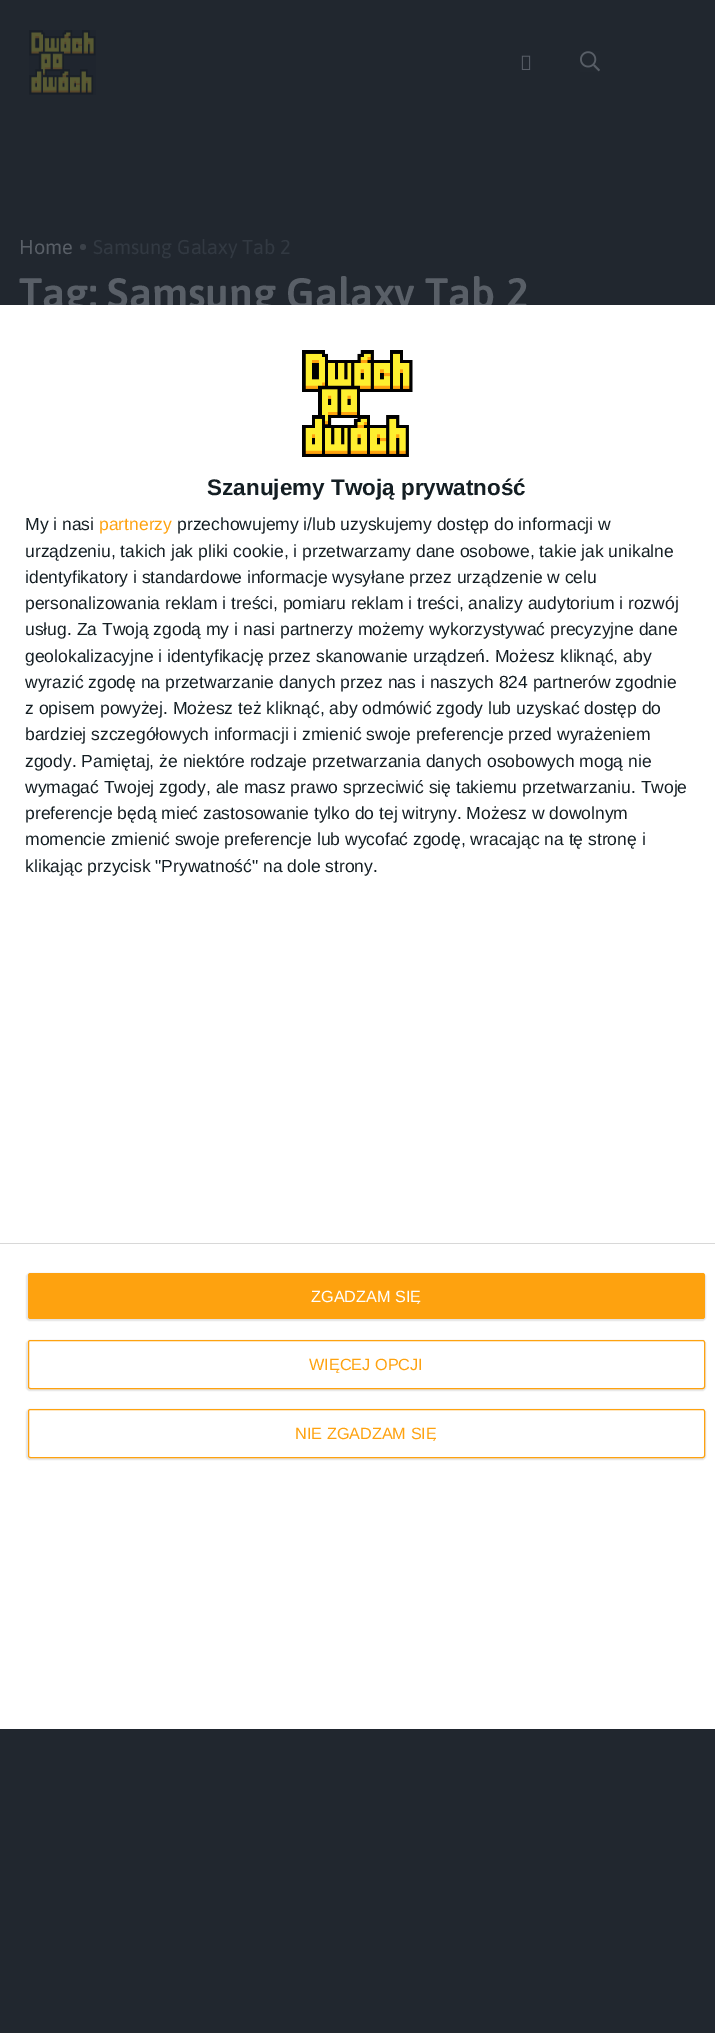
%!PS
<< /PageSize [715 2033] /PageUsesTransparency true >> setpagedevice
/alpha { dup .setfillconstantalpha .setstrokeconstantalpha } def
/roundrect { 5 dict begin { /r /h /w /y /x } { exch def } forall
  x r add y moveto x w add y 2 copy h add r arct x w add y h add x 1 index r arct
  x y h add x y r arct x y 2 copy exch w add exch r arct closepath end } def
/shadow { 12 dict begin { /a /b /q /h /w /y /x } { exch def } forall gsave /was 0 def
  9 -2 -9 { dup b mul 4 div /e exch def 1 sub .425 mul 2.718 exch exp 1 add a .99 .min exch div /now exch def
    1 1 now sub 1 was sub div sub alpha /was now def
    w h .min e 2 mul add 0 gt { x e sub y e sub w e 2 mul add h e 2 mul add
      q e add b .6 mul add w h .min 2 div e add .min 0 .max roundrect fill } if } for grestore end } def
/picture { 5 dict begin { /h /w /y /x /name } { exch def } forall
  gsave x y translate w h scale
  w h 8 [w 0 0 h 0 0] name (r) file false 3 colorimage grestore end } def
0 .pushpdf14devicefilter
0 2033 translate 1 -1 scale
4 setmiterlimit
0.129 0.153 0.184 setrgbcolor
0 0 715 2033 rectfill
(img1.rgb) 29 30 67 65 picture
(img2.rgb) 521 55 10 15 picture
(img3.rgb) 580 51 20 21 picture
/Asap-Regular [20 0 0 -20 0 0] selectfont
0.349 0.373 0.404 setrgbcolor
19 254 moveto (Home) show
0.231 0.255 0.286 setrgbcolor
newpath 83 247 3 0 360 arc closepath fill
0.196 0.224 0.259 setrgbcolor
93 254 moveto (Samsung Galaxy Tab 2) show
/Asap-SemiBold [42.5 0 0 -42.5 0 0] selectfont
0.349 0.373 0.404 setrgbcolor
19 308 moveto (Tag: Samsung Galaxy Tab 2) show
1 setgray
0 305 715 1424 rectfill
(img4.rgb) 302 350 111 107 picture
/LiberationSans-Bold [22.5 0 0 -22.5 0 0] selectfont
0.078 0.118 0.137 setrgbcolor
207 495 moveto (Szanujemy Twoją prywatność) show
/LiberationSans-Regular [17.5 0 0 -17.5 0 0] selectfont
25 530 moveto (My i nasi) show
0.996 0.635 0.059 setrgbcolor
99 530 moveto (partnerzy) show
0.078 0.118 0.137 setrgbcolor
177 530 moveto (przechowujemy i/lub uzyskujemy dostęp do informacji w) show
25 557 moveto (urządzeniu, takich jak pliki cookie, i przetwarzamy dane osobowe, takie jak unikalne) show
25 583 moveto (identyfikatory i standardowe informacje wysyłane przez urządzenie w celu) show
25 609 moveto (personalizowania reklam i treści, pomiaru reklam i treści, analizy audytorium i rozwój) show
25 635 moveto (usług. Za Twoją zgodą my i nasi partnerzy możemy wykorzystywać precyzyjne dane) show
25 662 moveto (geolokalizacyjne i identyfikację przez skanowanie urządzeń. Możesz kliknąć, aby) show
25 688 moveto (wyrazić zgodę na przetwarzanie danych przez nas i naszych 824 partnerów zgodnie) show
25 714 moveto (z opisem powyżej. Możesz też kliknąć, aby odmówić zgody lub uzyskać dostęp do) show
25 740 moveto (bardziej szczegółowych informacji i zmienić swoje preferencje przed wyrażeniem) show
25 767 moveto (zgody. Pamiętaj, że niektóre rodzaje przetwarzania danych osobowych mogą nie) show
25 793 moveto (wymagać Twojej zgody, ale masz prawo sprzeciwić się takiemu przetwarzaniu. Twoje) show
25 819 moveto (preferencje będą mieć zastosowanie tylko do tej witryny. Możesz w dowolnym) show
25 845 moveto (momencie zmienić swoje preferencje lub wycofać zgodę, wracając na tę stronę i) show
25 872 moveto (klikając przycisk "Prywatność" na dole strony.) show
0.847 setgray
0 1243 715 1 rectfill
0 setgray
26 1273 680 48 4 0.5 0.1 shadow
0.996 0.635 0.059 setrgbcolor
28 1273 677 46 2.5 roundrect fill
gsave
310 1288 111 16 rectclip
/LiberationSans-Regular [16.25 0 0 -16.25 0 0] selectfont
1 setgray
311 1302 moveto (ZGADZAM SIĘ) show
grestore
0 setgray
26 1340 680 51 4 0.5 0.1 shadow
1 setgray
28.5 1340.5 676 48 2 roundrect gsave fill grestore
0.996 0.635 0.059 setrgbcolor
stroke
gsave
309 1356 114 17 rectclip
/LiberationSans-Regular [16.25 0 0 -16.25 0 0] selectfont
309 1370 moveto (WIĘCEJ OPCJI) show
grestore
0 setgray
26 1409 680 51 4 0.5 0.1 shadow
1 setgray
28.5 1409.5 676 48 2 roundrect gsave fill grestore
0.996 0.635 0.059 setrgbcolor
stroke
gsave
295 1425 141 16 rectclip
/LiberationSans-Regular [16.25 0 0 -16.25 0 0] selectfont
295 1439 moveto (NIE ZGADZAM SIĘ) show
grestore
.poppdf14devicefilter showpage
